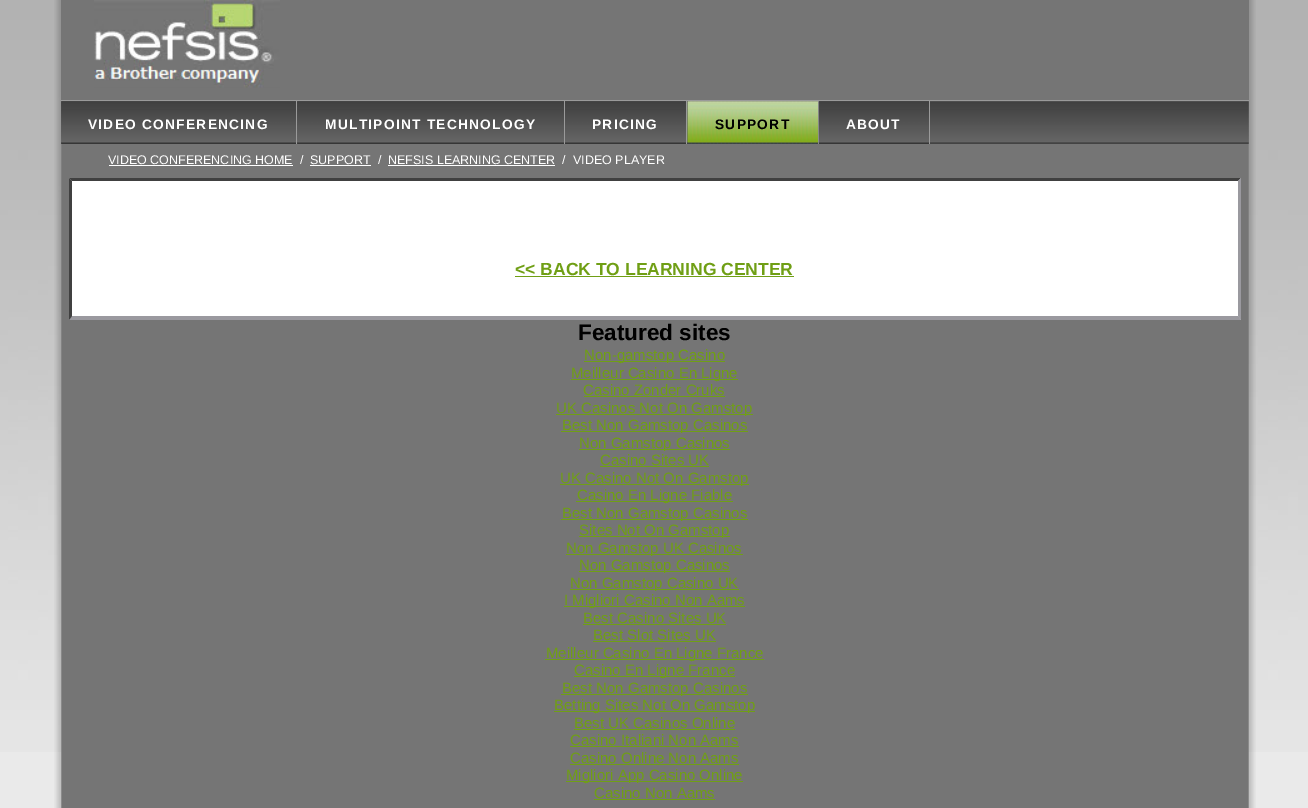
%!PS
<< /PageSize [1308 808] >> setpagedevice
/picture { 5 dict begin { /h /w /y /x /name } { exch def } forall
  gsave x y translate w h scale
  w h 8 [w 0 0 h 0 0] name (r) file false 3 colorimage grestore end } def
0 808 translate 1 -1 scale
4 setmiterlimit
0.918 setgray
0 0 1308 808 rectfill
(img1.rgb) 0 0 1308 752 picture
(img2.rgb) 54 0 1202 808 picture
0.459 setgray
61 0 1188 100 rectfill
0.604 setgray
61 100 1188 1 rectfill
(img3.rgb) 94 0 186 88 picture
(img4.rgb) 61 101 1188 43 picture
(img5.rgb) 61 101 237 43 picture
296 101 1 43 rectfill
/LiberationSans-Bold [13.75 0 0 -13.75 0 0] selectfont
1 setgray
88 129 moveto 1.25 0 (VIDEO CONFERENCING) ashow
(img6.rgb) 298 101 266 43 picture
0.604 setgray
564 101 1 43 rectfill
1 setgray
325 129 moveto 1.25 0 (MULTIPOINT TECHNOLOGY) ashow
(img7.rgb) 565 101 123 43 picture
0.604 setgray
686 101 1 43 rectfill
1 setgray
592 129 moveto 1.25 0 (PRICING) ashow
(img8.rgb) 687 101 131 43 picture
0.604 setgray
818 101 1 43 rectfill
0 setgray
715 129 moveto 1.25 0 (SUPPORT) ashow
(img9.rgb) 818 101 111 43 picture
0.604 setgray
929 101 1 43 rectfill
1 setgray
846 129 moveto 1.25 0 (ABOUT) ashow
/LiberationSans-Regular [12.5 0 0 -12.5 0 0] selectfont
108 164 moveto (VIDEO CONFERENCING HOME) show
109 165 184 1 rectfill
300 164 moveto (/) show
310 164 moveto (SUPPORT) show
310 165 61 1 rectfill
378 164 moveto (/) show
388 164 moveto (NEFSIS LEARNING CENTER) show
388 165 167 1 rectfill
562 164 moveto (/) show
573 164 moveto (VIDEO PLAYER) show
69 178 1172 142 rectfill
0.251 setgray
newpath 69 178 moveto 1241 178 lineto 1238 181 lineto 72 181 lineto closepath fill
0.604 0.6 0.624 setrgbcolor
newpath 1241 178 moveto 1241 320 lineto 1238 316 lineto 1238 181 lineto closepath fill
newpath 1241 320 moveto 69 320 lineto 72 316 lineto 1238 316 lineto closepath fill
0.251 setgray
newpath 69 320 moveto 69 178 lineto 72 181 lineto 72 316 lineto closepath fill
/LiberationSans-Bold [17.5 0 0 -17.5 0 0] selectfont
0.439 0.624 0.082 setrgbcolor
515 275 moveto (<< BACK TO LEARNING CENTER) show
515 276 279 1 rectfill
/LiberationSans-Bold [22.5 0 0 -22.5 0 0] selectfont
0 setgray
578 340 moveto (Featured sites) show
0.439 0.624 0.082 setrgbcolor
584 361 141 1 rectfill
/LiberationSans-Regular [15 0 0 -15 0 0] selectfont
584 360 moveto (Non-gamstop Casino) show
571 379 167 1 rectfill
571 378 moveto (Meilleur Casino En Ligne) show
583 395 moveto (Casino Zonder Cruks) show
584 396 141 1 rectfill
556 414 197 1 rectfill
556 413 moveto (UK Casinos Not On Gamstop) show
561 431 187 1 rectfill
562 430 moveto (Best Non Gamstop Casinos) show
579 449 151 1 rectfill
579 448 moveto (Non Gamstop Casinos) show
600 465 moveto (Casino Sites UK) show
600 466 109 1 rectfill
560 484 189 1 rectfill
560 483 moveto (UK Casino Not On Gamstop) show
576 501 157 1 rectfill
577 500 moveto (Casino En Ligne Fiable) show
561 519 187 1 rectfill
562 518 moveto (Best Non Gamstop Casinos) show
579 536 151 1 rectfill
579 535 moveto (Sites Not On Gamstop) show
566 554 177 1 rectfill
566 553 moveto (Non Gamstop UK Casinos) show
579 571 151 1 rectfill
579 570 moveto (Non Gamstop Casinos) show
570 589 169 1 rectfill
570 588 moveto (Non Gamstop Casino UK) show
564 606 181 1 rectfill
564 605 moveto (I Migliori Casino Non Aams) show
583 623 moveto (Best Casino Sites UK) show
583 624 143 1 rectfill
593 640 moveto (Best Slot Sites UK) show
593 641 123 1 rectfill
545 659 219 1 rectfill
546 658 moveto (Meilleur Casino En Ligne France) show
574 676 161 1 rectfill
574 675 moveto (Casino En Ligne France) show
561 694 187 1 rectfill
562 693 moveto (Best Non Gamstop Casinos) show
554 711 201 1 rectfill
554 710 moveto (Betting Sites Not On Gamstop) show
574 728 moveto (Best UK Casinos Online) show
574 729 161 1 rectfill
570 745 moveto (Casino Italiani Non Aams) show
570 746 169 1 rectfill
570 763 moveto (Casino Online Non Aams) show
570 764 169 1 rectfill
566 781 177 1 rectfill
566 780 moveto (Migliori App Casino Online) show
594 798 moveto (Casino Non Aams) show
594 799 121 1 rectfill
showpage
